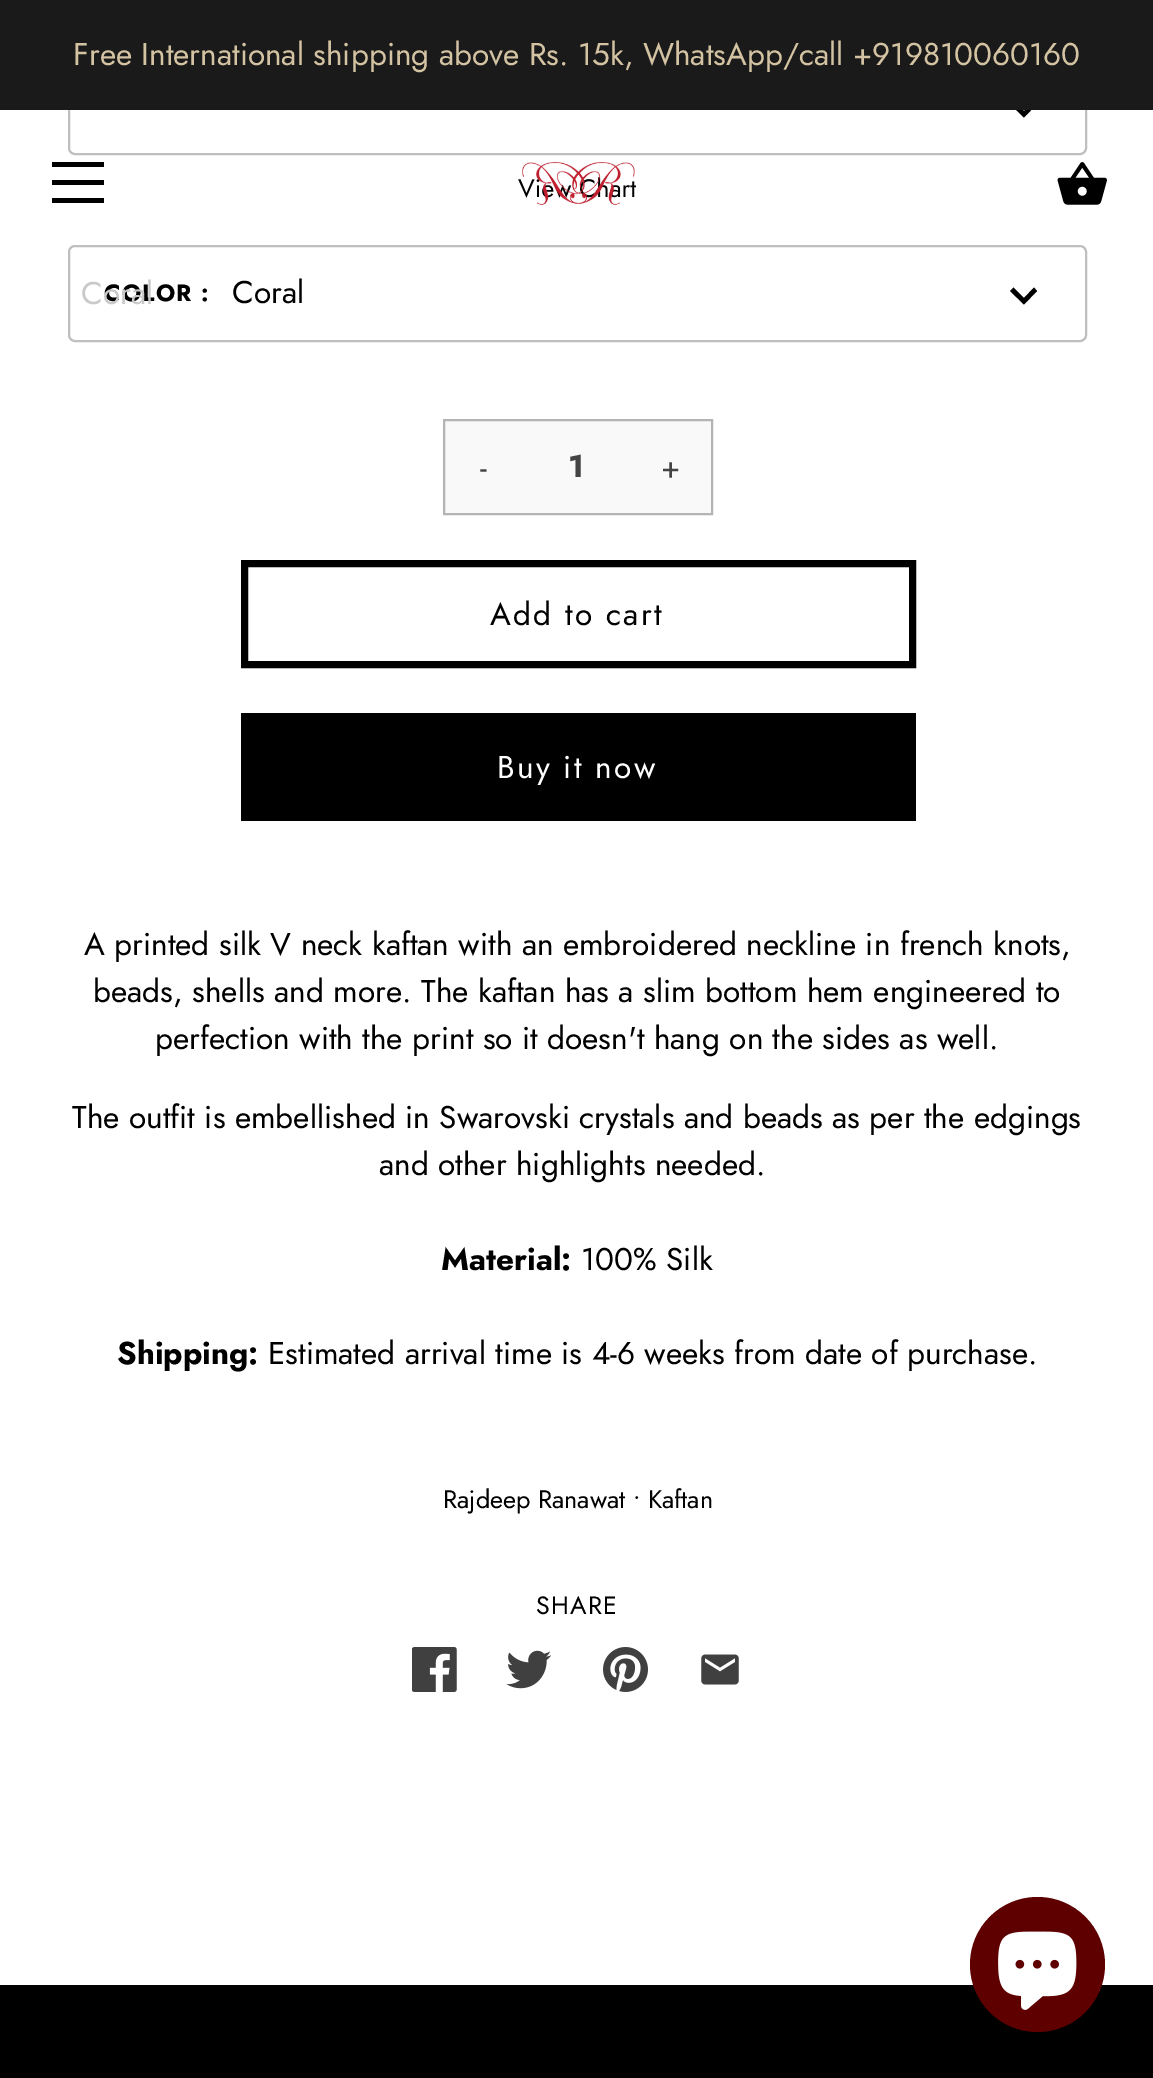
%!PS
<< /PageSize [1153 2078] >> setpagedevice
/roundrect { 5 dict begin { /r /h /w /y /x } { exch def } forall
  x r add y moveto x w add y 2 copy h add r arct x w add y h add x 1 index r arct
  x y h add x y r arct x y 2 copy exch w add exch r arct closepath end } def
/picture { 5 dict begin { /h /w /y /x /name } { exch def } forall
  gsave x y translate w h scale
  w h 8 [w 0 0 h 0 0] name (r) file false 3 colorimage grestore end } def
0 2078 translate 1 -1 scale
4 setmiterlimit
1 setgray
0 0 1153 2078 rectfill
0.749 setgray
2 setlinewidth
69 60 1017 94 6 roundrect stroke
0 setgray
newpath 1013.5 101 moveto 1024 111 lineto 1034 101 lineto 1037 104 lineto 1024 117.5 lineto 1010 104 lineto closepath fill
0.102 setgray
0 0 1153 110 rectfill
/Jost-Regular [31.5 0 0 -31.5 0 0] selectfont
0.827 0.765 0.635 setrgbcolor
73 65 moveto (Free International shipping above Rs. 15k, WhatsApp/call +919810060160) show
0 setgray
52 162 52 5 rectfill
52 180 52 5 rectfill
52 198 52 5 rectfill
/Jost-Regular [25.25 0 0 -25.25 0 0] selectfont
518 197 moveto (View Chart) show
(img1.rgb) 522 162 113 43 picture
(img2.rgb) 1057 162 50 43 picture
0.749 setgray
69 246 1017 95 6 roundrect stroke
/Jost-Bold [23.5 0 0 -23.5 0 0] selectfont
0 setgray
104 301 moveto 1.25 0 (COLOR :) ashow
/Jost-Regular [31.5 0 0 -31.5 0 0] selectfont
232 303 moveto (Coral) show
0.788 setgray
81 304 moveto (Coral) show
0 setgray
newpath 1013.5 287.5 moveto 1024 298 lineto 1034 287.5 lineto 1037 291 lineto 1024 304.5 lineto 1010 291 lineto closepath fill
0.976 setgray
newpath 444 420 moveto 712 420 lineto 712 514 lineto 444 514 lineto closepath gsave fill grestore
0.706 setgray
stroke
0.267 setgray
480 478 moveto (-) show
/Jost-Bold [31.5 0 0 -31.5 0 0] selectfont
568 477 moveto 2 0 (1) ashow
/Jost-Regular [31.5 0 0 -31.5 0 0] selectfont
661 478 moveto (+) show
0 setgray
7 setlinewidth
244.5 563.5 668 101 rectstroke
490 625 moveto 2.25 0 (Add to cart) ashow
241 713 675 108 rectfill
1 setgray
497 778 moveto 2.25 0 (Buy it now) ashow
0 setgray
84 955 moveto (A printed silk V neck kaftan with an embroidered neckline in french knots,) show
93 1002 moveto (beads, shells and more. The kaftan has a slim bottom hem engineered to) show
155 1049 moveto (perfection with the print so it doesn't hang on the sides as well.) show
72 1128 moveto (The outfit is embellished in Swarovski crystals and beads as per the edgings) show
379 1175 moveto (and other highlights needed.) show
/Jost-Bold [31.5 0 0 -31.5 0 0] selectfont
441 1270 moveto (Material:) show
/Jost-Regular [31.5 0 0 -31.5 0 0] selectfont
581 1270 moveto (100% Silk) show
/Jost-Bold [31.5 0 0 -31.5 0 0] selectfont
117 1364 moveto (Shipping:) show
/Jost-Regular [31.5 0 0 -31.5 0 0] selectfont
268 1364 moveto (Estimated arrival time is 4-6 weeks from date of purchase.) show
/Jost-Regular [25.25 0 0 -25.25 0 0] selectfont
443 1508 moveto (Rajdeep Ranawat • Kaftan) show
/Jost-Regular [25 0 0 -25 0 0] selectfont
536 1614 moveto 1.25 0 (SHARE) ashow
(img3.rgb) 412 1647 45 45 picture
(img4.rgb) 506 1650 45 39 picture
(img5.rgb) 603 1647 45 45 picture
(img6.rgb) 701 1654 38 31 picture
0 1985 1153 93 rectfill
0.369 0 0 setrgbcolor
newpath 1037.5 1964.5 67.5 0 360 arc closepath fill
(img7.rgb) 998 1931 79 79 picture
showpage
